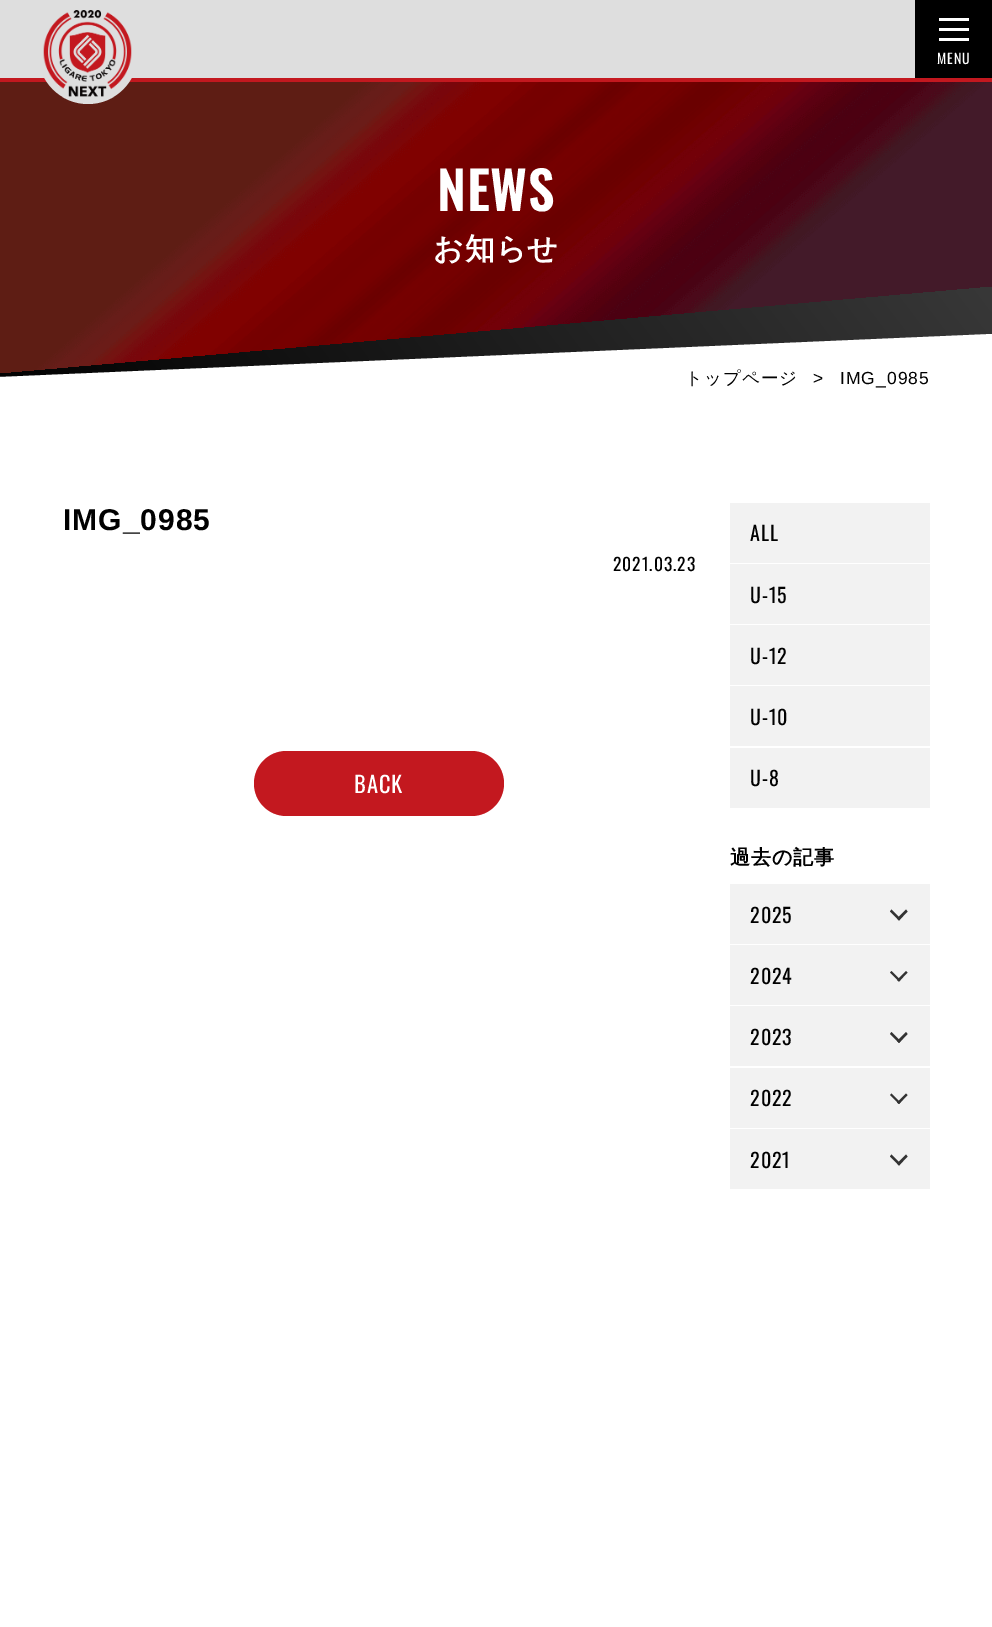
%!PS
<< /PageSize [992 1627] >> setpagedevice
/roundrect { 5 dict begin { /r /h /w /y /x } { exch def } forall
  x r add y moveto x w add y 2 copy h add r arct x w add y h add x 1 index r arct
  x y h add x y r arct x y 2 copy exch w add exch r arct closepath end } def
/picture { 5 dict begin { /h /w /y /x /name } { exch def } forall
  gsave x y translate w h scale
  w h 8 [w 0 0 h 0 0] name (r) file false 3 colorimage grestore end } def
0 1627 translate 1 -1 scale
4 setmiterlimit
1 setgray
0 0 992 1627 rectfill
0.871 setgray
0 0 915 78 rectfill
0.765 0.094 0.122 setrgbcolor
0 78 992 4 rectfill
(img2.rgb) 0 82 992 292 picture
0.871 setgray
newpath 88 54 50 0 360 arc closepath fill
(img1.rgb) 43 10 89 87 picture
0 setgray
915 0 77 78 rectfill
1 setgray
939 18 30 3 rectfill
939 28 30 3 rectfill
939 38 30 3 rectfill
/Oswald-Regular [14 0 0 -14 0 0] selectfont
937 64 moveto 1 0 (MENU) ashow
/Oswald-SemiBold [52.5 0 0 -52.5 0 0] selectfont
437 211 moveto 0.5 0 (NEWS) ashow
/WenQuanYiZenHei-Bold [30 0 0 -30 0 0] selectfont
433 259 moveto 1 0 (お知らせ) ashow
gsave newpath 0 374 moveto 992 287 lineto 992 362 lineto 0 449 lineto closepath clip newpath
<< /ShadingType 2 /ColorSpace /DeviceRGB /Coords [138 641 855 95] /Extend [true true] /Function << /FunctionType 2 /Domain [0 1] /C0 [0 0 0] /C1 [0.22 0.22 0.22] /N 1 >> >> shfill grestore
newpath 0 377 moveto 992 334 lineto 992 459 lineto 0 502 lineto closepath fill
/WenQuanYiZenHei-Medium [17.5 0 0 -17.5 0 0] selectfont
0.004 setgray
685 384 moveto 1 0 (トップページ) ashow
/LiberationSans-Regular [17.5 0 0 -17.5 0 0] selectfont
813 384 moveto 1 0 (>) ashow
840 384 moveto 1 0 (IMG_0985) ashow
/LiberationSans-Bold [30 0 0 -30 0 0] selectfont
63 530 moveto 1 0 (IMG_0985) ashow
/Oswald-Regular [17.5 0 0 -17.5 0 0] selectfont
613 571 moveto 1 0 (2021.03.23) ashow
0.765 0.094 0.122 setrgbcolor
254 751 250 65 32.5 roundrect fill
/Oswald-Regular [22.5 0 0 -22.5 0 0] selectfont
1 setgray
354 793 moveto 1 0 (BACK) ashow
0.949 setgray
730 503 200 60 rectfill
/Oswald-Regular [20 0 0 -20 0 0] selectfont
0.004 setgray
750 541 moveto 1 0 (ALL) ashow
0.949 setgray
730 564 200 60 rectfill
0.004 setgray
750 603 moveto 1 0 (U-15) ashow
0.949 setgray
730 625 200 60 rectfill
0.004 setgray
750 664 moveto 1 0 (U-12) ashow
0.949 setgray
730 686 200 60 rectfill
0.004 setgray
750 725 moveto 1 0 (U-10) ashow
0.949 setgray
730 748 200 60 rectfill
0.004 setgray
750 786 moveto 1 0 (U-8) ashow
/WenQuanYiZenHei-Bold [20 0 0 -20 0 0] selectfont
730 864 moveto 1 0 (過去の記事) ashow
0.949 setgray
730 884 200 60 rectfill
/Oswald-Regular [20 0 0 -20 0 0] selectfont
0.004 setgray
750 923 moveto 1 0 (2025) ashow
0.2 setgray
newpath 907.5 911.5 moveto 899 920.5 lineto 897 918.5 lineto 906 909.5 lineto closepath fill
newpath 900.5 918.5 moveto 899 920.5 lineto 890 911.5 lineto 891.5 909.5 lineto closepath fill
0.949 setgray
730 945 200 60 rectfill
0.004 setgray
750 984 moveto 1 0 (2024) ashow
0.2 setgray
newpath 907.5 972.5 moveto 899 981.5 lineto 897 980 lineto 906 971 lineto closepath fill
newpath 900.5 980 moveto 899 981.5 lineto 890 972.5 lineto 891.5 971 lineto closepath fill
0.949 setgray
730 1006 200 60 rectfill
0.004 setgray
750 1045 moveto 1 0 (2023) ashow
0.2 setgray
newpath 907.5 1034 moveto 899 1043 lineto 897 1041 lineto 906 1032 lineto closepath fill
newpath 900.5 1041 moveto 899 1043 lineto 890 1034 lineto 891.5 1032 lineto closepath fill
0.949 setgray
730 1068 200 60 rectfill
0.004 setgray
750 1106 moveto 1 0 (2022) ashow
0.2 setgray
newpath 907.5 1095 moveto 899 1104 lineto 897 1102.5 lineto 906 1093.5 lineto closepath fill
newpath 900.5 1102.5 moveto 899 1104 lineto 890 1095 lineto 891.5 1093.5 lineto closepath fill
0.949 setgray
730 1129 200 60 rectfill
0.004 setgray
750 1168 moveto 1 0 (2021) ashow
0.2 setgray
newpath 907.5 1156.5 moveto 899 1165.5 lineto 897 1163.5 lineto 906 1154.5 lineto closepath fill
newpath 900.5 1163.5 moveto 899 1165.5 lineto 890 1156.5 lineto 891.5 1154.5 lineto closepath fill
showpage
